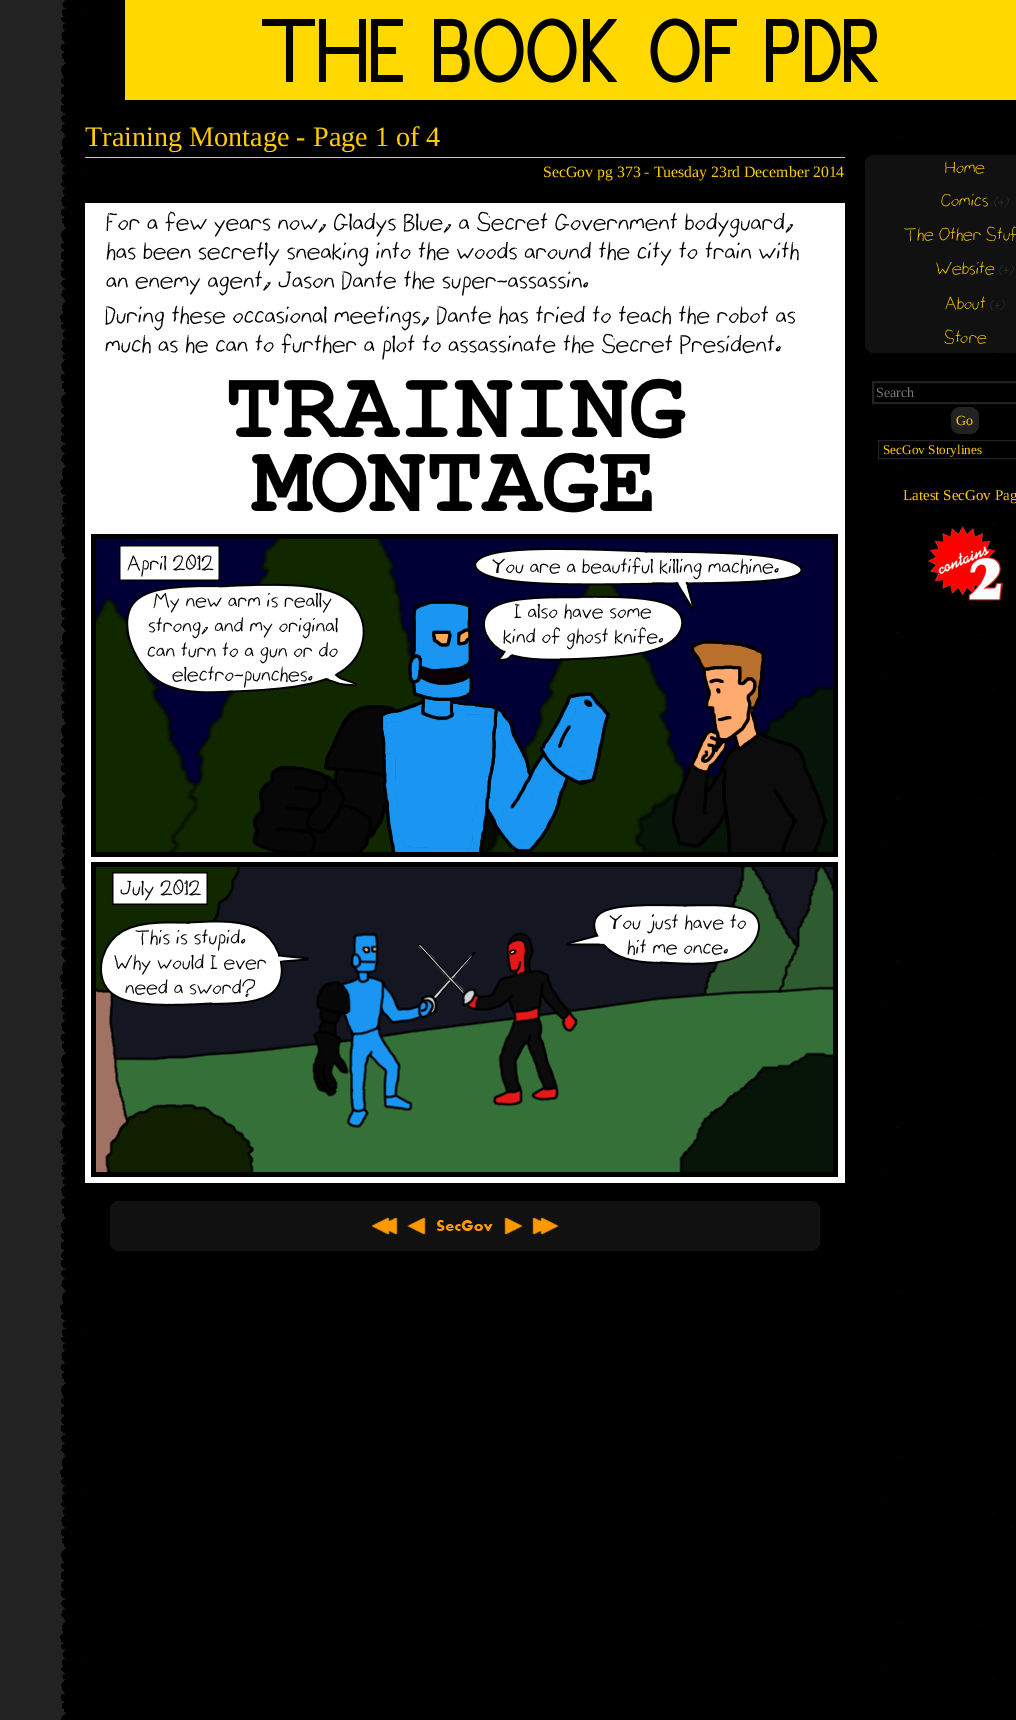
%!PS
<< /PageSize [1016 1720] >> setpagedevice
/roundrect { 5 dict begin { /r /h /w /y /x } { exch def } forall
  x r add y moveto x w add y 2 copy h add r arct x w add y h add x 1 index r arct
  x y h add x y r arct x y 2 copy exch w add exch r arct closepath end } def
/picture { 5 dict begin { /h /w /y /x /name } { exch def } forall
  gsave x y translate w h scale
  w h 8 [w 0 0 h 0 0] name (r) file false 3 colorimage grestore end } def
0 1720 translate 1 -1 scale
4 setmiterlimit
0.133 setgray
0 0 1016 1720 rectfill
(img1.rgb) 60 0 956 1720 picture
(img2.rgb) 125 0 891 100 picture
1 0.8 0 setrgbcolor
85 157 760 1 rectfill
/LiberationSerif-Regular [28.2 0 0 -28.2 0 0] selectfont
85 146 moveto (Training Montage - Page 1 of 4) show
/LiberationSerif-Regular [15.8 0 0 -15.8 0 0] selectfont
543 177 moveto (SecGov pg 373 - Tuesday 23rd December 2014) show
(img3.rgb) 85 203 760 980 picture
0.067 setgray
110 1201 710 50 9 roundrect fill
(img4.rgb) 371 1217 188 18 picture
865 155 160 198 9 roundrect fill
/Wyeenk-Regular [14 0 0 -14 0 0] selectfont
1 0.8 0 setrgbcolor
945 173 moveto (Home) show
941 206 moveto (Comics) show
/Wyeenk-Regular [10 0 0 -10 0 0] selectfont
0.2 setgray
994 206 moveto (\(+\)) show
/Wyeenk-Regular [14 0 0 -14 0 0] selectfont
1 0.8 0 setrgbcolor
904 240 moveto (The Other Stuf) show
936 274 moveto (Website) show
/Wyeenk-Regular [10 0 0 -10 0 0] selectfont
0.2 setgray
999 274 moveto (\(+\)) show
/Wyeenk-Regular [14 0 0 -14 0 0] selectfont
1 0.8 0 setrgbcolor
945 309 moveto (About) show
/Wyeenk-Regular [10 0 0 -10 0 0] selectfont
0.2 setgray
990 309 moveto (\(+\)) show
/Wyeenk-Regular [14 0 0 -14 0 0] selectfont
1 0.8 0 setrgbcolor
944 343 moveto (Store) show
0.133 setgray
2 setlinewidth
873 382 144 21 rectstroke
/LiberationSerif-Regular [14 0 0 -14 0 0] selectfont
0.459 setgray
876 397 moveto (Search) show
0.133 setgray
951 407 28 27 9 roundrect fill
1 0.8 0 setrgbcolor
956 425 moveto (Go) show
0 setgray
944 456 1 1 rectfill
0.133 setgray
1 setlinewidth
878.5 440.5 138 18 rectstroke
/LiberationSerif-Regular [13.25 0 0 -13.25 0 0] selectfont
1 0.8 0 setrgbcolor
883 454 moveto (SecGov Storylines) show
/LiberationSerif-Regular [15 0 0 -15 0 0] selectfont
903 500 moveto (Latest SecGov Pag) show
(img5.rgb) 928 527 75 74 picture
showpage
